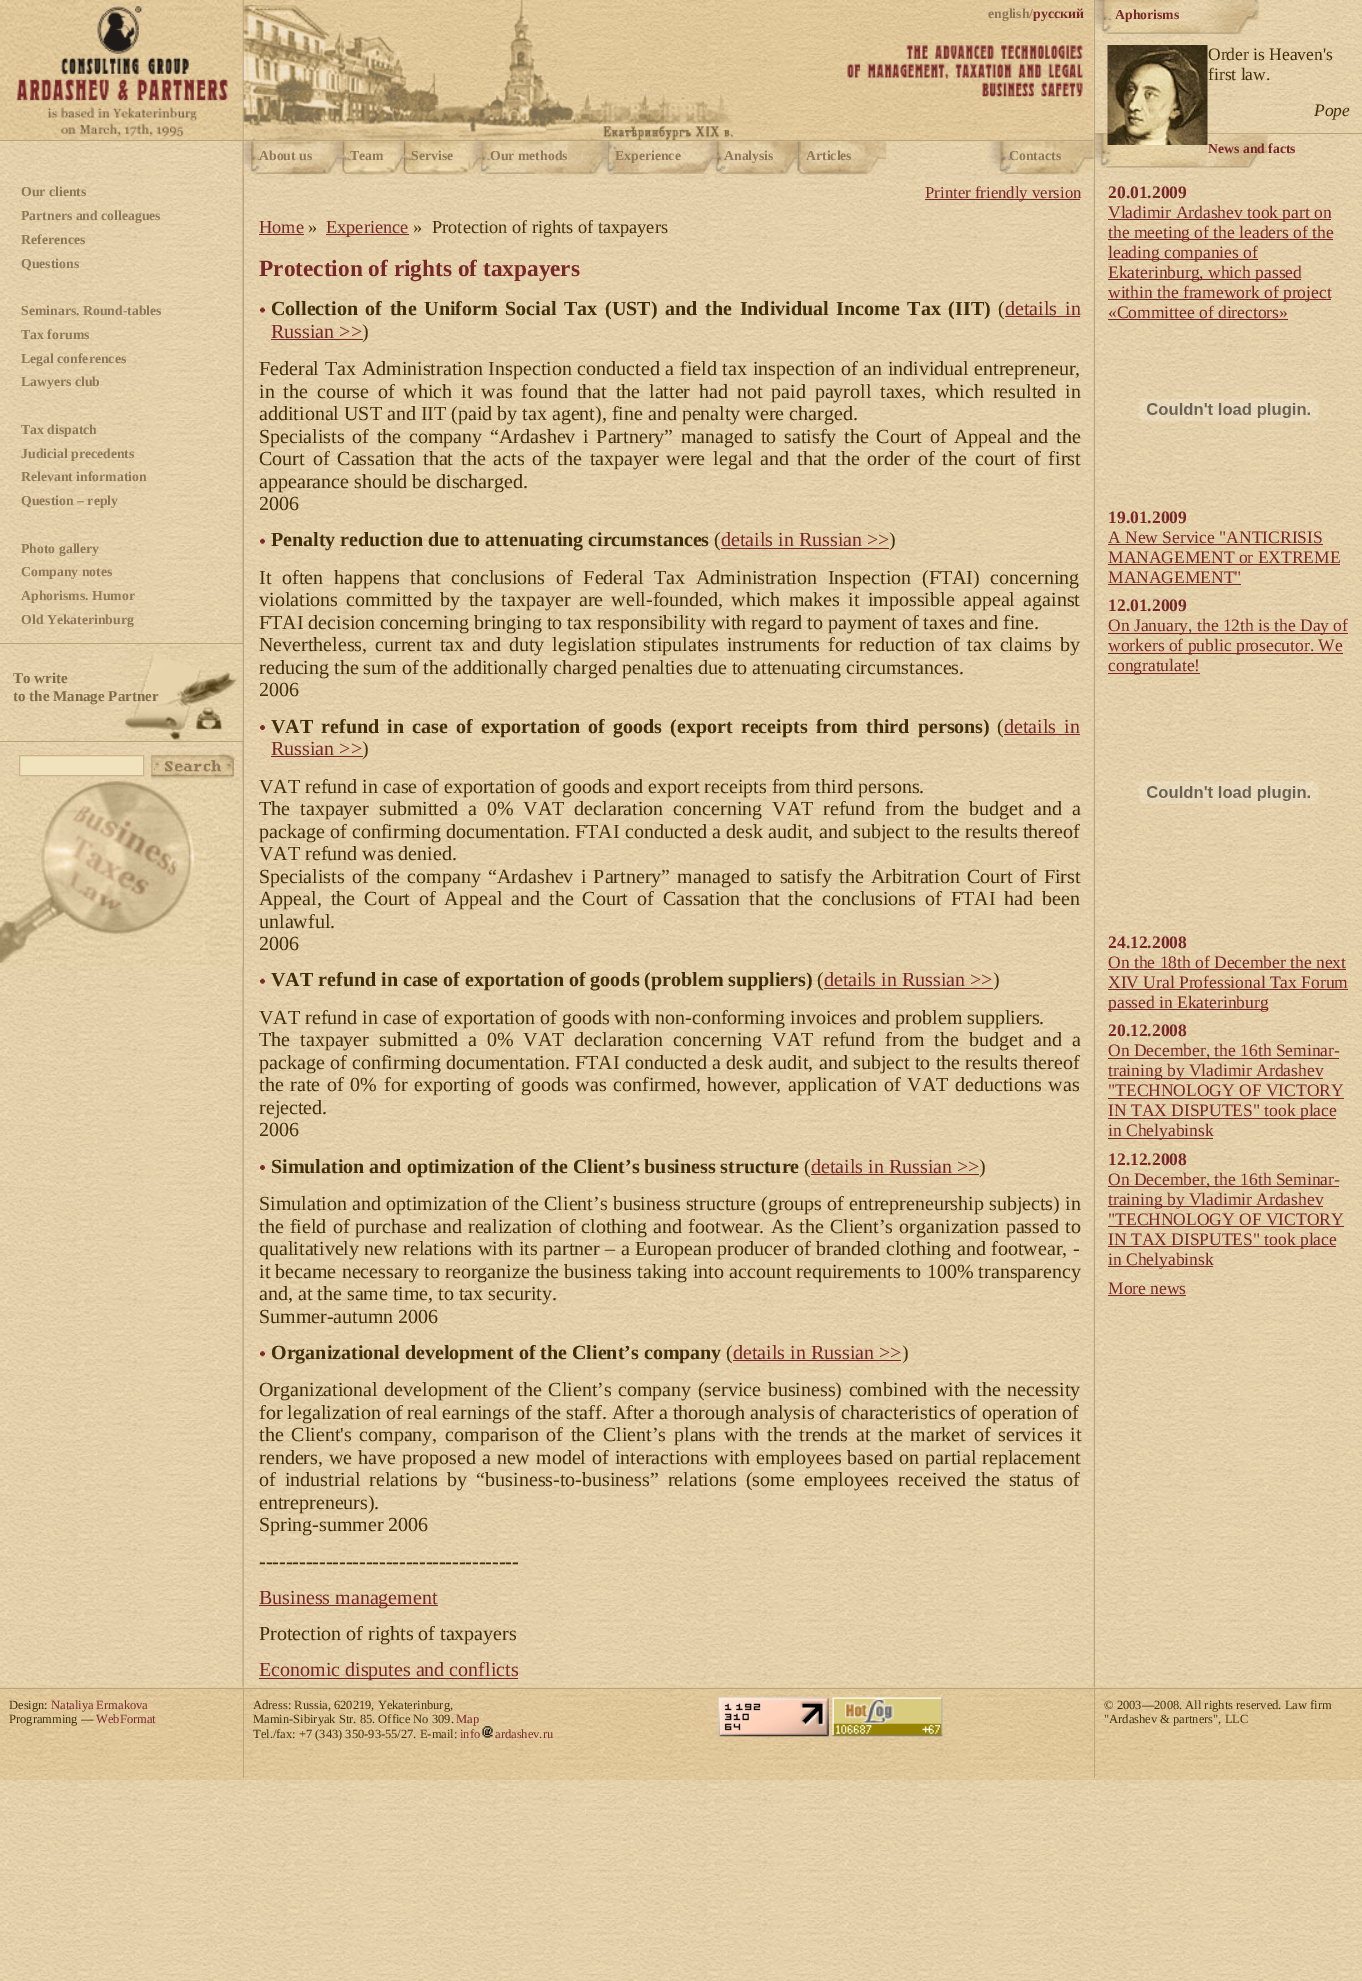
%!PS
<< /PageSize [1362 1981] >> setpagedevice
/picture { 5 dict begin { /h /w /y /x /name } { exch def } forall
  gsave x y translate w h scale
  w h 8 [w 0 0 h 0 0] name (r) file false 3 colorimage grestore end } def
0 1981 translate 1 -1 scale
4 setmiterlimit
1 setgray
0 0 1362 1981 rectfill
(img1.rgb) 0 0 1362 1981 picture
(img6.rgb) 242 0 2 1688 picture
0.722 0.643 0.482 setrgbcolor
243 0 1 971 rectfill
0 140 243 1 rectfill
(img2.rgb) 0 0 243 140 picture
/LiberationSerif-Bold [13.75 0 0 -13.75 0 0] selectfont
0.557 0.467 0.345 setrgbcolor
21 196 moveto (Our clients) show
21 220 moveto (Partners and colleagues) show
21 244 moveto (References) show
21 268 moveto (Questions) show
21 315 moveto (Seminars. Round-tables) show
21 339 moveto (Tax forums) show
21 363 moveto (Legal conferences) show
21 386 moveto (Lawyers club) show
21 434 moveto (Tax dispatch) show
21 458 moveto (Judicial precedents) show
21 481 moveto (Relevant information) show
21 505 moveto (Question – reply) show
21 553 moveto (Photo gallery) show
21 576 moveto (Company notes) show
21 600 moveto (Aphorisms. Humor) show
21 624 moveto (Old Yekaterinburg) show
(img3.rgb) 123 644 120 99 picture
0.722 0.643 0.482 setrgbcolor
0 643 243 1 rectfill
0 741 243 1 rectfill
/LiberationSerif-Bold [15 0 0 -15 0 0] selectfont
0.486 0.42 0.275 setrgbcolor
13 683 moveto (To write) show
13 701 moveto (to the Manage Partner) show
0.945 0.89 0.745 setrgbcolor
newpath 19.5 755.5 moveto 143.5 755.5 lineto 143.5 775.5 lineto 19.5 775.5 lineto closepath gsave fill grestore
0.788 0.706 0.541 setrgbcolor
stroke
(img5.rgb) 0 778 243 189 picture
(img4.rgb) 151 753 84 26 picture
(img7.rgb) 244 0 850 142 picture
0.722 0.643 0.482 setrgbcolor
244 140 851 1 rectfill
(img8.rgb) 243 0 490 140 picture
/LiberationSerif-Bold [13.75 0 0 -13.75 0 0] selectfont
0.557 0.467 0.345 setrgbcolor
988 18 moveto (english/) show
0.475 0.157 0.165 setrgbcolor
1033 18 moveto (русский) show
(img9.rgb) 846 45 238 52 picture
(img10.rgb) 243 141 100 34 picture
0.557 0.467 0.345 setrgbcolor
259 160 moveto (About us) show
(img11.rgb) 342 141 62 34 picture
350 160 moveto (Team) show
(img12.rgb) 403 141 79 34 picture
411 160 moveto (Servise) show
(img13.rgb) 481 141 127 34 picture
490 160 moveto (Our methods) show
(img14.rgb) 607 141 110 34 picture
615 160 moveto (Experience) show
(img15.rgb) 716 141 82 34 picture
724 160 moveto (Analysis) show
(img16.rgb) 797 141 90 34 picture
806 160 moveto (Articles) show
(img18.rgb) 1093 175 2 1513 picture
(img25.rgb) 1093 0 269 1479 picture
(img17.rgb) 987 141 107 34 picture
1009 160 moveto (Contacts) show
0.475 0.157 0.165 setrgbcolor
925 199 155 1 rectfill
/LiberationSerif-Regular [16.75 0 0 -16.75 0 0] selectfont
925 198 moveto (Printer friendly version) show
/LiberationSerif-Regular [18.3 0 0 -18.3 0 0] selectfont
259 233 moveto (Home) show
259 234 45 1 rectfill
0.255 0.184 0.035 setrgbcolor
308 233 moveto (») show
0.475 0.157 0.165 setrgbcolor
326 234 83 1 rectfill
326 233 moveto (Experience) show
0.255 0.184 0.035 setrgbcolor
413 233 moveto (») show
432 233 moveto (Protection of rights of taxpayers) show
/LiberationSerif-Bold [23.3 0 0 -23.3 0 0] selectfont
0.475 0.157 0.165 setrgbcolor
259 276 moveto (Protection of rights of taxpayers) show
(img19.rgb) 260 307 5 6 picture
/LiberationSerif-Bold [20 0 0 -20 0 0] selectfont
0.255 0.184 0.035 setrgbcolor
271 315 moveto 2.75 0 32 (Collection of the Uniform Social Tax \(UST\) and the Individual Income Tax \(IIT\)) widthshow
/LiberationSerif-Regular [20 0 0 -20 0 0] selectfont
998 315 moveto (\() show
0.475 0.157 0.165 setrgbcolor
1005 315 moveto 2.75 0 32 (details in) widthshow
1005 316 75 1 rectfill
271 338 moveto (Russian >>) show
271 339 92 1 rectfill
0.255 0.184 0.035 setrgbcolor
362 338 moveto (\)) show
259 375 moveto 0.75 0 32 (Federal Tax Administration Inspection conducted a field tax inspection of an individual entrepreneur,) widthshow
259 398 moveto 3.9 0 32 (in the course of which it was found that the latter had not paid payroll taxes, which resulted in) widthshow
259 420 moveto (additional UST and IIT \(paid by tax agent\), fine and penalty were charged.) show
259 443 moveto 2.75 0 32 (Specialists of the company “Ardashev i Partnery” managed to satisfy the Court of Appeal and the) widthshow
259 465 moveto 3 0 32 (Court of Cassation that the acts of the taxpayer were legal and that the order of the court of first) widthshow
259 488 moveto (appearance should be discharged.) show
259 510 moveto (2006) show
(img20.rgb) 260 538 5 6 picture
/LiberationSerif-Bold [20 0 0 -20 0 0] selectfont
271 546 moveto (Penalty reduction due to attenuating circumstances) show
/LiberationSerif-Regular [20 0 0 -20 0 0] selectfont
714 546 moveto (\() show
0.475 0.157 0.165 setrgbcolor
721 546 moveto (details in Russian >>) show
721 548 168 1 rectfill
0.255 0.184 0.035 setrgbcolor
889 546 moveto (\)) show
259 584 moveto 5.75 0 32 (It often happens that conclusions of Federal Tax Administration Inspection \(FTAI\) concerning) widthshow
259 606 moveto 3.4 0 32 (violations committed by the taxpayer are well-founded, which makes it impossible appeal against) widthshow
259 629 moveto (FTAI decision concerning bringing to tax responsibility with regard to payment of taxes and fine.) show
259 651 moveto 2.9 0 32 (Nevertheless, current tax and duty legislation stipulates instruments for reduction of tax claims by) widthshow
259 674 moveto (reducing the sum of the additionally charged penalties due to attenuating circumstances.) show
259 696 moveto (2006) show
(img21.rgb) 260 725 5 5 picture
/LiberationSerif-Bold [20 0 0 -20 0 0] selectfont
271 733 moveto 3.25 0 32 (VAT refund in case of exportation of goods \(export receipts from third persons\)) widthshow
/LiberationSerif-Regular [20 0 0 -20 0 0] selectfont
997 733 moveto (\() show
0.475 0.157 0.165 setrgbcolor
1004 733 moveto 3.25 0 32 (details in) widthshow
1004 734 76 1 rectfill
271 755 moveto (Russian >>) show
271 756 92 1 rectfill
0.255 0.184 0.035 setrgbcolor
362 755 moveto (\)) show
259 793 moveto (VAT refund in case of exportation of goods and export receipts from third persons.) show
259 815 moveto 5 0 32 (The taxpayer submitted a 0% VAT declaration concerning VAT refund from the budget and a) widthshow
259 838 moveto 0.3 0 32 (package of confirming documentation. FTAI conducted a desk audit, and subject to the results thereof) widthshow
259 860 moveto (VAT refund was denied.) show
259 883 moveto 2.25 0 32 (Specialists of the company “Ardashev i Partnery” managed to satisfy the Arbitration Court of First) widthshow
259 905 moveto 4 0 32 (Appeal, the Court of Appeal and the Court of Cassation that the conclusions of FTAI had been) widthshow
259 928 moveto (unlawful.) show
259 950 moveto (2006) show
(img22.rgb) 260 978 5 6 picture
/LiberationSerif-Bold [20 0 0 -20 0 0] selectfont
271 986 moveto (VAT refund in case of exportation of goods \(problem suppliers\)) show
/LiberationSerif-Regular [20 0 0 -20 0 0] selectfont
817 986 moveto (\() show
0.475 0.157 0.165 setrgbcolor
824 986 moveto (details in Russian >>) show
824 988 169 1 rectfill
0.255 0.184 0.035 setrgbcolor
993 986 moveto (\)) show
259 1024 moveto (VAT refund in case of exportation of goods with non-conforming invoices and problem suppliers.) show
259 1046 moveto 5 0 32 (The taxpayer submitted a 0% VAT declaration concerning VAT refund from the budget and a) widthshow
259 1069 moveto 0.3 0 32 (package of confirming documentation. FTAI conducted a desk audit, and subject to the results thereof) widthshow
259 1091 moveto 1.8 0 32 (the rate of 0% for exporting of goods was confirmed, however, application of VAT deductions was) widthshow
259 1114 moveto (rejected.) show
259 1136 moveto (2006) show
(img23.rgb) 260 1165 5 5 picture
/LiberationSerif-Bold [20 0 0 -20 0 0] selectfont
271 1173 moveto (Simulation and optimization of the Client’s business structure) show
/LiberationSerif-Regular [20 0 0 -20 0 0] selectfont
804 1173 moveto (\() show
0.475 0.157 0.165 setrgbcolor
811 1173 moveto (details in Russian >>) show
811 1174 168 1 rectfill
0.255 0.184 0.035 setrgbcolor
979 1173 moveto (\)) show
259 1210 moveto 0.25 0 32 (Simulation and optimization of the Client’s business structure \(groups of entrepreneurship subjects\) in) widthshow
259 1233 moveto 1.25 0 32 (the field of purchase and realization of clothing and footwear. As the Client’s organization passed to) widthshow
259 1255 moveto 0.5 0 32 (qualitatively new relations with its partner – a European producer of branded clothing and footwear, -) widthshow
259 1278 moveto 0.2 0 32 (it became necessary to reorganize the business taking into account requirements to 100% transparency) widthshow
259 1300 moveto (and, at the same time, to tax security.) show
259 1323 moveto (Summer-autumn 2006) show
(img24.rgb) 260 1351 5 6 picture
/LiberationSerif-Bold [20 0 0 -20 0 0] selectfont
271 1359 moveto (Organizational development of the Client’s company) show
/LiberationSerif-Regular [20 0 0 -20 0 0] selectfont
726 1359 moveto (\() show
0.475 0.157 0.165 setrgbcolor
733 1359 moveto (details in Russian >>) show
733 1360 168 1 rectfill
0.255 0.184 0.035 setrgbcolor
902 1359 moveto (\)) show
259 1396 moveto 1.5 0 32 (Organizational development of the Client’s company \(service business\) combined with the necessity) widthshow
259 1419 moveto (for legalization of real earnings of the staff. After a thorough analysis of characteristics of operation of) show
259 1441 moveto 2.75 0 32 (the Client's company, comparison of the Client’s plans with the trends at the market of services it) widthshow
259 1464 moveto 1.1 0 32 (renders, we have proposed a new model of interactions with employees based on partial replacement) widthshow
259 1486 moveto 4.1 0 32 (of industrial relations by “business-to-business” relations \(some employees received the status of) widthshow
259 1509 moveto (entrepreneurs\).) show
259 1531 moveto (Spring-summer 2006) show
/LiberationSerif-Bold [20 0 0 -20 0 0] selectfont
259 1568 moveto (---------------------------------------) show
0.475 0.157 0.165 setrgbcolor
259 1605 179 1 rectfill
/LiberationSerif-Regular [20 0 0 -20 0 0] selectfont
259 1604 moveto (Business management) show
0.255 0.184 0.035 setrgbcolor
259 1640 moveto (Protection of rights of taxpayers) show
0.475 0.157 0.165 setrgbcolor
259 1678 259 1 rectfill
259 1676 moveto (Economic disputes and conflicts) show
0.722 0.643 0.482 setrgbcolor
1094 0 1 1479 rectfill
1095 133 267 1 rectfill
(img26.rgb) 1095 0 164 34 picture
/LiberationSerif-Bold [13.75 0 0 -13.75 0 0] selectfont
0.475 0.157 0.165 setrgbcolor
1115 19 moveto (Aphorisms) show
(img28.rgb) 1095 133 173 35 picture
(img27.rgb) 1107 45 101 100 picture
/LiberationSerif-Regular [17.5 0 0 -17.5 0 0] selectfont
0.255 0.184 0.035 setrgbcolor
1208 60 moveto (Order is Heaven's) show
1208 80 moveto (first law.) show
/LiberationSerif-Italic [17.5 0 0 -17.5 0 0] selectfont
1314 116 moveto (Pope) show
/LiberationSerif-Bold [13.75 0 0 -13.75 0 0] selectfont
0.475 0.157 0.165 setrgbcolor
1208 153 moveto (News and facts) show
/LiberationSerif-Bold [17.5 0 0 -17.5 0 0] selectfont
1108 198 moveto (20.01.2009) show
1108 219 223 1 rectfill
/LiberationSerif-Regular [17.5 0 0 -17.5 0 0] selectfont
1108 218 moveto (Vladimir Ardashev took part on) show
1108 239 225 1 rectfill
1108 238 moveto (the meeting of the leaders of the) show
1108 259 150 1 rectfill
1108 258 moveto (leading companies of) show
1108 279 193 1 rectfill
1108 278 moveto (Ekaterinburg, which passed) show
1108 299 223 1 rectfill
1108 298 moveto (within the framework of project) show
1108 318 moveto («Committee of directors») show
1108 319 180 1 rectfill
(img29.rgb) 1138 398 181 24 picture
/LiberationSerif-Bold [17.5 0 0 -17.5 0 0] selectfont
1108 523 moveto (19.01.2009) show
/LiberationSerif-Regular [17.5 0 0 -17.5 0 0] selectfont
1108 543 moveto (A New Service "ANTICRISIS) show
1108 544 215 1 rectfill
1108 563 moveto (MANAGEMENT or EXTREME) show
1108 564 232 1 rectfill
1108 583 moveto (MANAGEMENT") show
1108 584 133 1 rectfill
/LiberationSerif-Bold [17.5 0 0 -17.5 0 0] selectfont
1108 611 moveto (12.01.2009) show
1108 633 240 1 rectfill
/LiberationSerif-Regular [17.5 0 0 -17.5 0 0] selectfont
1108 631 moveto (On January, the 12th is the Day of) show
1108 653 235 1 rectfill
1108 651 moveto (workers of public prosecutor. We) show
1108 673 92 1 rectfill
1108 671 moveto (congratulate!) show
(img30.rgb) 1138 781 181 23 picture
/LiberationSerif-Bold [17.5 0 0 -17.5 0 0] selectfont
1108 948 moveto (24.12.2008) show
/LiberationSerif-Regular [17.5 0 0 -17.5 0 0] selectfont
1108 968 moveto (On the 18th of December the next) show
1108 969 238 1 rectfill
1108 988 moveto (XIV Ural Professional Tax Forum) show
1108 989 240 1 rectfill
1108 1009 160 1 rectfill
1108 1008 moveto (passed in Ekaterinburg) show
/LiberationSerif-Bold [17.5 0 0 -17.5 0 0] selectfont
1108 1036 moveto (20.12.2008) show
1108 1058 231 1 rectfill
/LiberationSerif-Regular [17.5 0 0 -17.5 0 0] selectfont
1108 1056 moveto (On December, the 16th Seminar-) show
1108 1078 215 1 rectfill
1108 1076 moveto (training by Vladimir Ardashev) show
1108 1096 moveto ("TECHNOLOGY OF VICTORY) show
1108 1098 236 1 rectfill
1108 1118 228 1 rectfill
1108 1116 moveto (IN TAX DISPUTES" took place) show
1108 1138 105 1 rectfill
1108 1136 moveto (in Chelyabinsk) show
/LiberationSerif-Bold [17.5 0 0 -17.5 0 0] selectfont
1108 1165 moveto (12.12.2008) show
1108 1186 231 1 rectfill
/LiberationSerif-Regular [17.5 0 0 -17.5 0 0] selectfont
1108 1185 moveto (On December, the 16th Seminar-) show
1108 1206 215 1 rectfill
1108 1205 moveto (training by Vladimir Ardashev) show
1108 1225 moveto ("TECHNOLOGY OF VICTORY) show
1108 1226 236 1 rectfill
1108 1246 228 1 rectfill
1108 1245 moveto (IN TAX DISPUTES" took place) show
1108 1266 105 1 rectfill
1108 1265 moveto (in Chelyabinsk) show
1108 1294 moveto (More news) show
1108 1295 78 1 rectfill
(img31.rgb) 0 1687 1362 93 picture
0.722 0.643 0.482 setrgbcolor
0 1688 1362 1 rectfill
243 1689 1 89 rectfill
/LiberationSerif-Regular [12.5 0 0 -12.5 0 0] selectfont
0.255 0.184 0.035 setrgbcolor
9 1709 moveto (Design:) show
0.475 0.157 0.165 setrgbcolor
51 1709 moveto (Nataliya Ermakova) show
0.255 0.184 0.035 setrgbcolor
9 1723 moveto (Programming —) show
0.475 0.157 0.165 setrgbcolor
96 1723 moveto (WebFormat) show
0.255 0.184 0.035 setrgbcolor
253 1709 moveto (Adress: Russia, 620219, Yekaterinburg,) show
253 1723 moveto (Mamin-Sibiryak Str. 85. Office No 309.) show
0.475 0.157 0.165 setrgbcolor
456 1723 moveto (Map) show
0.255 0.184 0.035 setrgbcolor
253 1738 moveto (Tel./fax: +7 \(343\) 350-93-55/27. E-mail:) show
0.475 0.157 0.165 setrgbcolor
460 1738 moveto (info) show
(img32.rgb) 482 1726 11 12 picture
495 1738 moveto (ardashev.ru) show
(img33.rgb) 718 1697 111 40 picture
(img34.rgb) 832 1697 111 40 picture
0.722 0.643 0.482 setrgbcolor
1094 1689 1 89 rectfill
0.255 0.184 0.035 setrgbcolor
1104 1709 moveto (© 2003—2008. All rights reserved. Law firm) show
1104 1723 moveto ("Ardashev & partners", LLC) show
showpage
